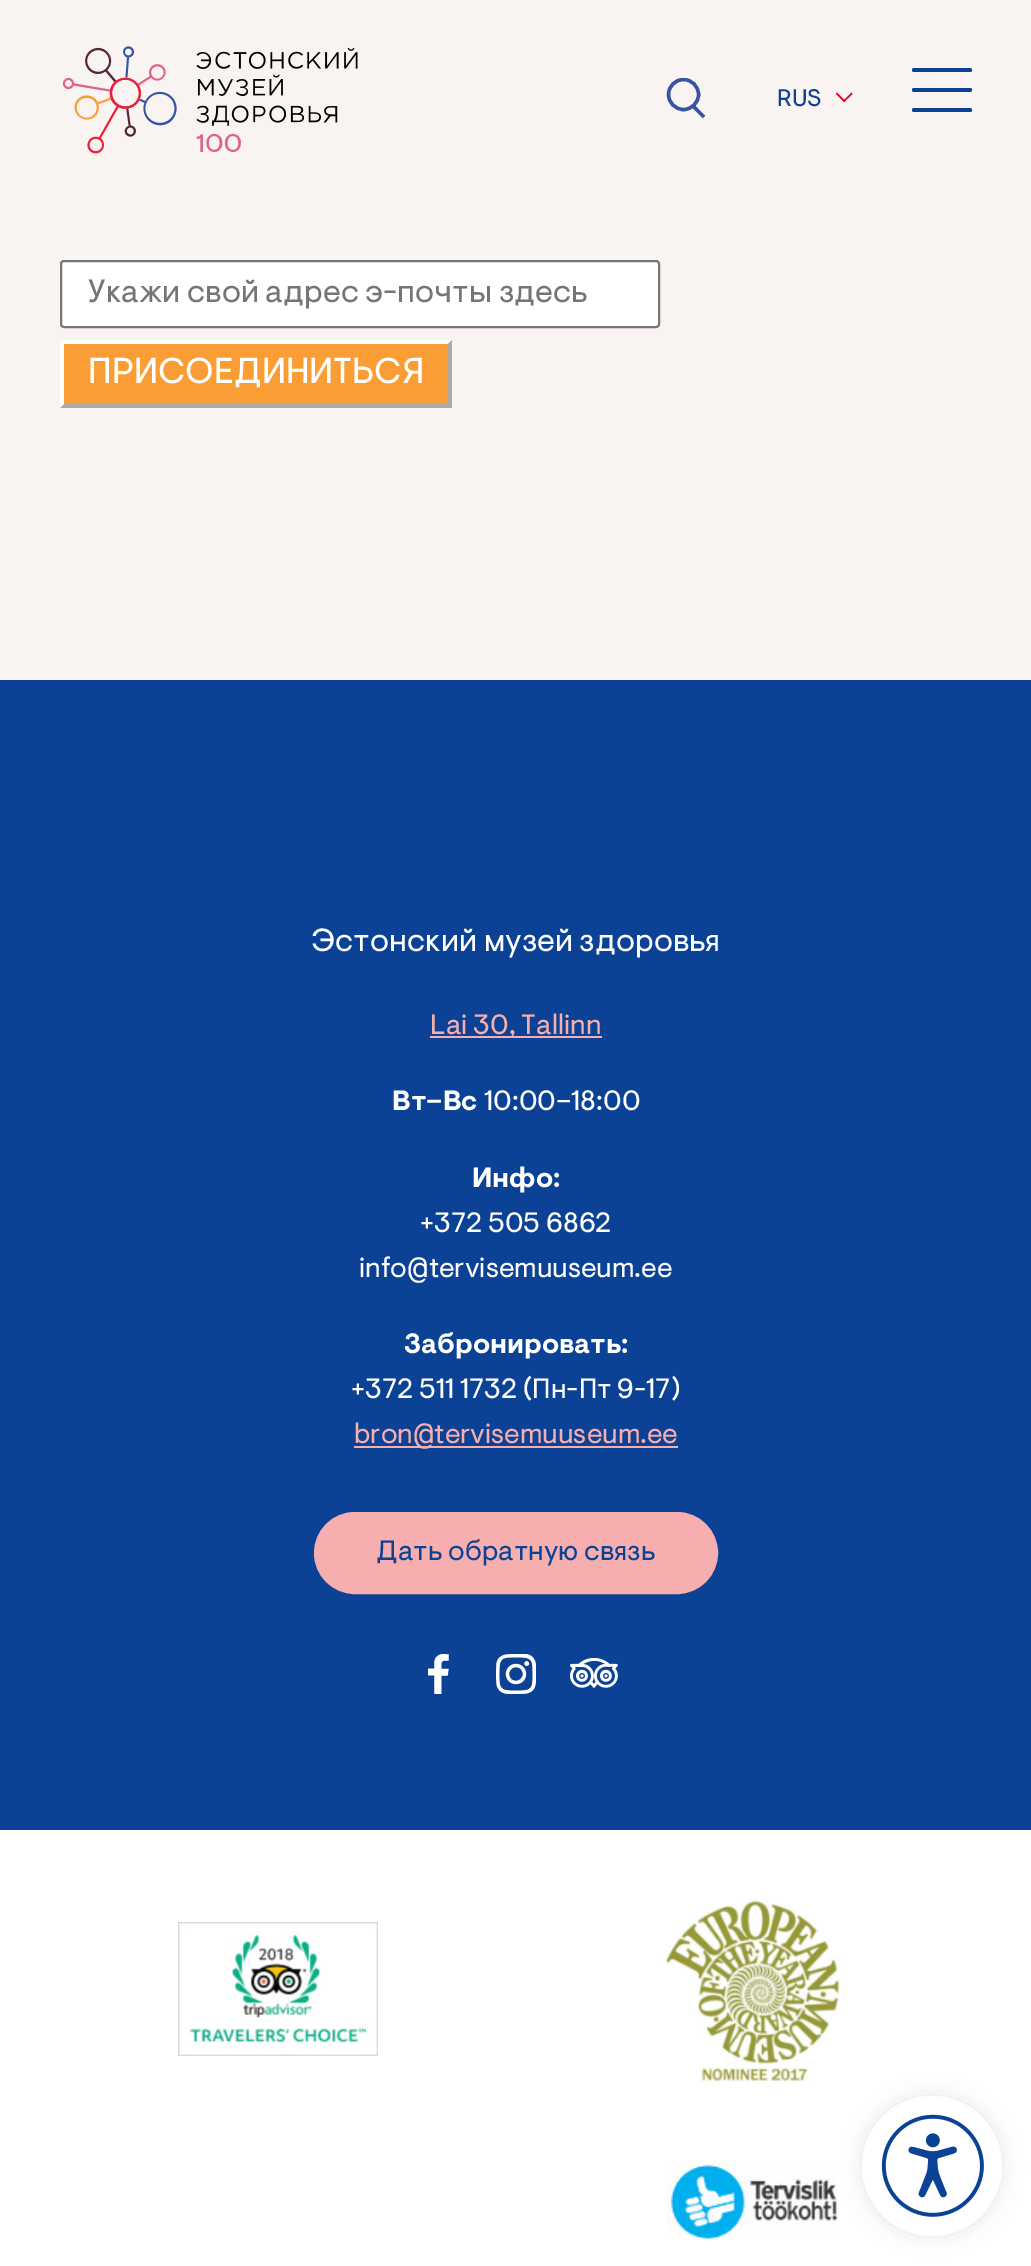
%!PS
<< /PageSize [1031 2266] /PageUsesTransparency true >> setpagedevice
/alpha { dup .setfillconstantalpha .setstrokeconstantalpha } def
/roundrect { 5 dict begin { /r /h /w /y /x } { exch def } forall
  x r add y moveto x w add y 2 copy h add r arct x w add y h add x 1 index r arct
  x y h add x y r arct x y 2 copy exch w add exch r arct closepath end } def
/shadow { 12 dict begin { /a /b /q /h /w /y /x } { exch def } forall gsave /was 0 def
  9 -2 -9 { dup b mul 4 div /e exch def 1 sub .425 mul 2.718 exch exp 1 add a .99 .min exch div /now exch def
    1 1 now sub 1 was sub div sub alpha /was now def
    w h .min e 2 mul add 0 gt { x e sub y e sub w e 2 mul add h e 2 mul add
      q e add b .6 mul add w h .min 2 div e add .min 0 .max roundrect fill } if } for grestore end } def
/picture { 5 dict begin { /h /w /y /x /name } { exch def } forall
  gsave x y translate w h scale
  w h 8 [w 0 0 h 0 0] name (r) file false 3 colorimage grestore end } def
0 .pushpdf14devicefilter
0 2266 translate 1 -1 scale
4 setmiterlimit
0.976 0.953 0.949 setrgbcolor
0 0 1031 2266 rectfill
(img1.rgb) 62 46 296 108 picture
gsave
666 78 40 40 rectclip
0.22 0.329 0.643 setrgbcolor
3.4 setlinewidth
newpath 683.5 94.5 15 0 360 arc closepath stroke
grestore
0.22 0.329 0.643 setrgbcolor
3.4 setlinewidth
newpath 693 106 moveto 704 117 lineto stroke
/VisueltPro-Regular [24 0 0 -24 0 0] selectfont
0.047 0.259 0.584 setrgbcolor
777 106 moveto (RUS) show
0.898 0 0.169 setrgbcolor
newpath 851.5 92.5 moveto 852.5 94 lineto 844 102 lineto 843 101 lineto closepath fill
newpath 837 92.5 moveto 845.5 101 lineto 844 102 lineto 836 94 lineto closepath fill
0.047 0.259 0.584 setrgbcolor
912 88 60 4 2 roundrect fill
912 68 60 4 2 roundrect fill
912 108 60 4 2 roundrect fill
1 setgray
61 261 598 66 3 roundrect gsave fill grestore
0.463 setgray
2 setlinewidth
stroke
/VisueltPro-Regular [32 0 0 -32 0 0] selectfont
0.459 setgray
88 302 moveto (Укажи свой адрес э-почты здесь) show
0.976 0.616 0.204 setrgbcolor
60 340 392 68 rectfill
1 setgray
newpath 60 340 moveto 452 340 lineto 448 344 lineto 64 344 lineto closepath fill
0.667 setgray
newpath 452 340 moveto 452 408 lineto 448 404 lineto 448 344 lineto closepath fill
newpath 452 408 moveto 60 408 lineto 64 404 lineto 448 404 lineto closepath fill
1 setgray
newpath 60 408 moveto 60 340 lineto 64 344 lineto 64 404 lineto closepath fill
/VisueltPro-Regular [36 0 0 -36 0 0] selectfont
88 383 moveto (ПРИСОЕДИНИТЬСЯ) show
0.047 0.259 0.584 setrgbcolor
0 680 1031 1150 rectfill
/VisueltPro-Regular [32 0 0 -32 0 0] selectfont
1 setgray
311 951 moveto (Эстонский музей здоровья) show
0.965 0.682 0.682 setrgbcolor
430 1036 172 2 rectfill
/VisueltPro-Regular [28 0 0 -28 0 0] selectfont
430 1034 moveto (Lai 30, Tallinn) show
/VisueltPro-Bold [28 0 0 -28 0 0] selectfont
1 setgray
392 1110 moveto (Вт–Вс) show
/VisueltPro-Regular [28 0 0 -28 0 0] selectfont
484 1110 moveto (10:00–18:00) show
/VisueltPro-Bold [28 0 0 -28 0 0] selectfont
472 1187 moveto (Инфо:) show
/VisueltPro-Regular [28 0 0 -28 0 0] selectfont
420 1232 moveto (+372 505 6862) show
359 1277 moveto (info@tervisemuuseum.ee) show
/VisueltPro-Bold [28 0 0 -28 0 0] selectfont
404 1353 moveto (Забронировать:) show
/VisueltPro-Regular [28 0 0 -28 0 0] selectfont
351 1398 moveto (+372 511 1732 \(Пн-Пт 9-17\)) show
0.965 0.682 0.682 setrgbcolor
354 1446 324 2 rectfill
354 1443 moveto (bron@tervisemuuseum.ee) show
315 1513 402 80 40 roundrect gsave fill grestore
stroke
0.047 0.259 0.584 setrgbcolor
376 1560 moveto (Дать обратную связь) show
(img2.rgb) 428 1654 21 40 picture
(img3.rgb) 496 1654 40 40 picture
(img4.rgb) 570 1658 48 30 picture
1 setgray
0 1830 1031 436 rectfill
(img5.rgb) 178 1922 200 134 picture
(img6.rgb) 665 1899 176 183 picture
(img7.rgb) 666 2160 173 80 picture
0 setgray
862 2096 140 140 70 10 0.1 shadow
1 setgray
newpath 932 2166 70 0 360 arc closepath fill
(img8.rgb) 881 2114 103 103 picture
.poppdf14devicefilter showpage
